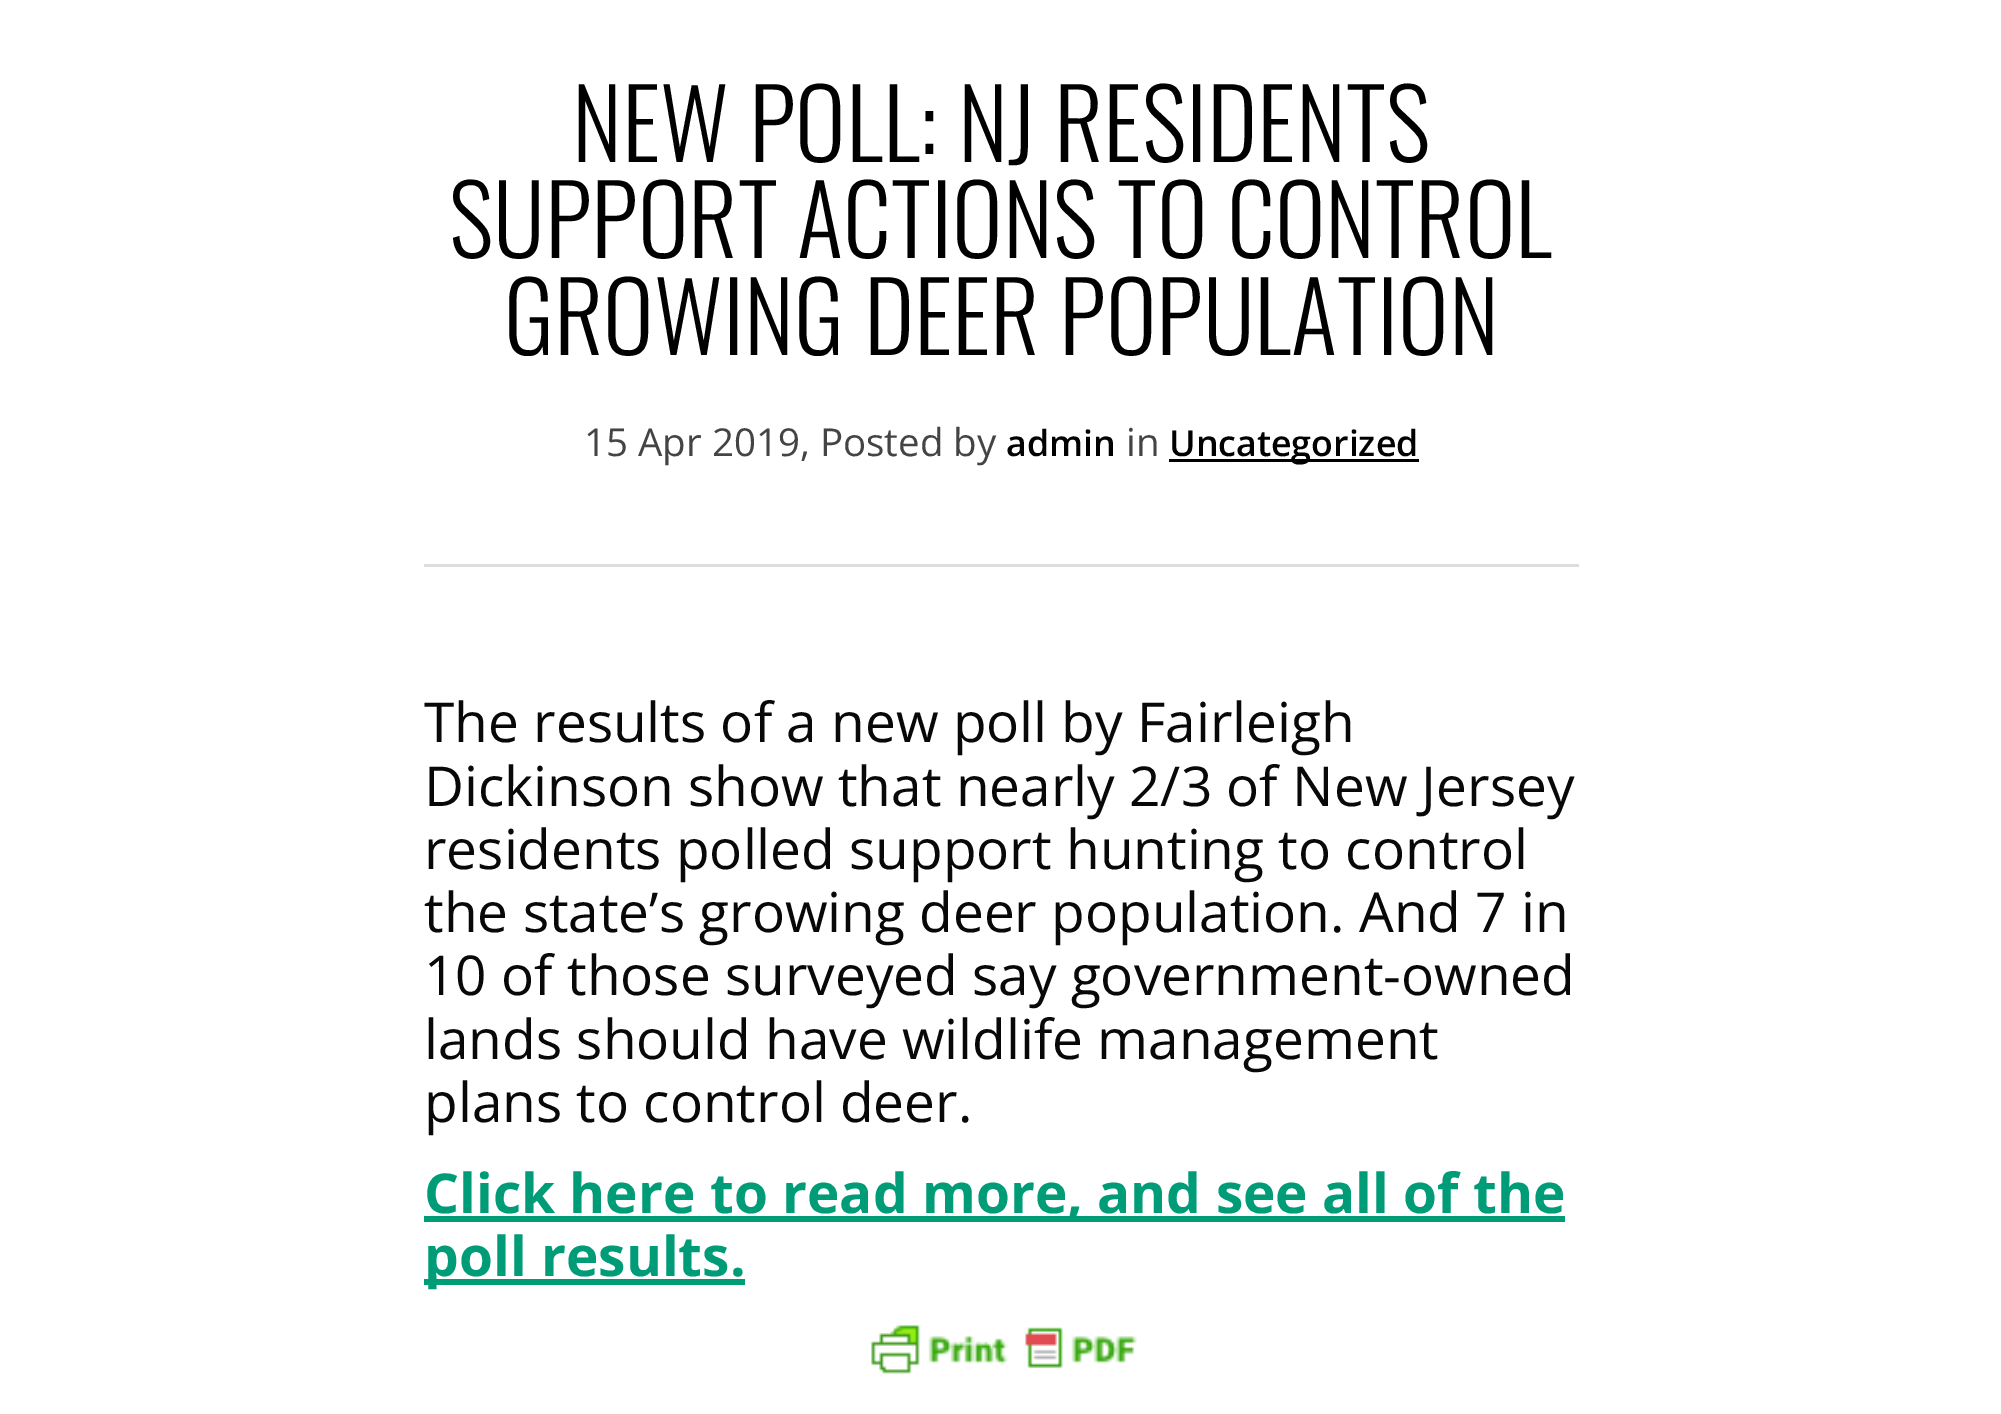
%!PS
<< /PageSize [2001 1414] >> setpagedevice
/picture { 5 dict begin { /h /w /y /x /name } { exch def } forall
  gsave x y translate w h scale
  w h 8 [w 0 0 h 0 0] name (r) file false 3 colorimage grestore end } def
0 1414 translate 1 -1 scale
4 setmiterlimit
1 setgray
0 0 2001 1414 rectfill
/Oswald-Light [96.25 0 0 -96.25 0 0] selectfont
0 setgray
572 162 moveto (NEW POLL: NJ RESIDENTS) show
449 258 moveto (SUPPORT ACTIONS TO CONTROL) show
504 355 moveto (GROWING DEER POPULATION) show
0.867 setgray
424 564 1155 3 rectfill
/OpenSans-Regular [38.5 0 0 -38.5 0 0] selectfont
0.267 setgray
584 456 moveto (15 Apr 2019, Posted by) show
/OpenSans-SemiBold [35.75 0 0 -35.75 0 0] selectfont
0 setgray
1006 456 moveto (admin) show
/OpenSans-Regular [38.5 0 0 -38.5 0 0] selectfont
0.267 setgray
1126 456 moveto (in) show
0 setgray
1169 459 250 3 rectfill
/OpenSans-SemiBold [35.75 0 0 -35.75 0 0] selectfont
1169 456 moveto (Uncategorized) show
/OpenSans-Regular [55 0 0 -55 0 0] selectfont
0.031 setgray
424 742 moveto (The results of a new poll by Fairleigh) show
424 806 moveto (Dickinson show that nearly 2/3 of New Jersey) show
424 869 moveto (residents polled support hunting to control) show
424 932 moveto (the state’s growing deer population. And 7 in) show
424 995 moveto (10 of those surveyed say government-owned) show
424 1059 moveto (lands should have wildlife management) show
424 1122 moveto (plans to control deer.) show
0 0.608 0.467 setrgbcolor
424 1216 1141 6 rectfill
/OpenSans-Bold [55 0 0 -55 0 0] selectfont
424 1213 moveto (Click here to read more, and see all of the) show
424 1279 321 6 rectfill
424 1276 moveto (poll results.) show
(img1.rgb) 871 1325 266 49 picture
showpage
